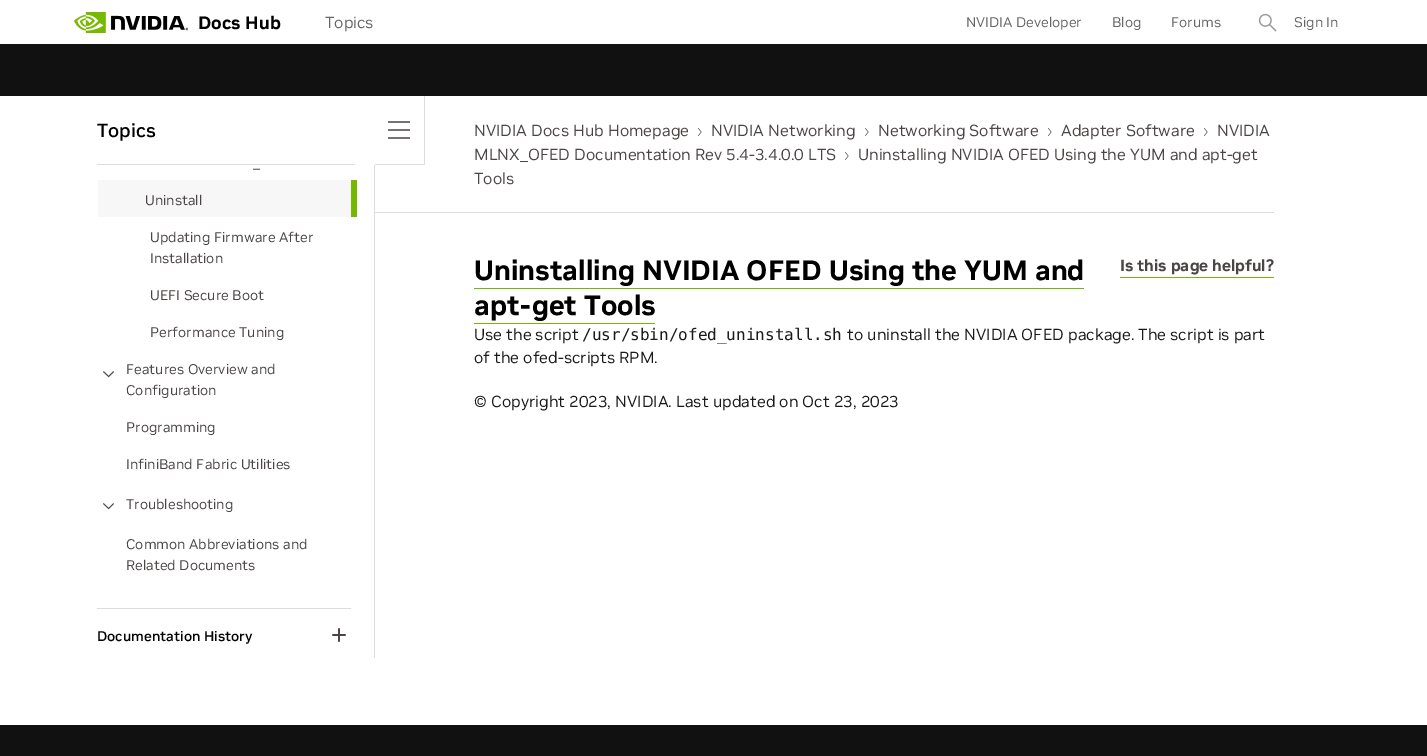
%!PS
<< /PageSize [1427 756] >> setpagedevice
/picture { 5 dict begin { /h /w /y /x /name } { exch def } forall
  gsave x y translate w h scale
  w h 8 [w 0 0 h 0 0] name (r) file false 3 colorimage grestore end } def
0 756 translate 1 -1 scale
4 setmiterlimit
1 setgray
0 0 1427 756 rectfill
(img1.rgb) 74 12 114 21 picture
/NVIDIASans-Bold [18 0 0 -18 0 0] selectfont
0 setgray
198 29 moveto (Docs Hub) show
/NVIDIASans-Regular [16 0 0 -16 0 0] selectfont
0.4 setgray
325 28 moveto (Topics) show
/NVIDIASans-Regular [14 0 0 -14 0 0] selectfont
966 27 moveto (NVIDIA Developer) show
1112 27 moveto (Blog) show
1171 27 moveto (Forums) show
(img2.rgb) 1258 13 19 19 picture
1294 27 moveto (Sign In) show
0.067 setgray
0 44 1427 52 rectfill
/NVIDIASans-Medium [19 0 0 -19 0 0] selectfont
0 setgray
97 137 moveto (Topics) show
0.867 setgray
97 164 258 1 rectfill
424 96 1 69 rectfill
375 164 50 1 rectfill
0.471 0.443 0.443 setrgbcolor
388 121 22 2 rectfill
388 129 22 2 rectfill
388 137 22 2 rectfill
0.867 setgray
374 165 1 493 rectfill
/NVIDIASans-Regular [14 0 0 -14 0 0] selectfont
0.294 0.271 0.271 setrgbcolor
253 168 moveto (_) show
0.969 setgray
98 180 253 37 rectfill
0.294 0.271 0.271 setrgbcolor
145 205 moveto (Uninstall) show
0.455 0.725 0 setrgbcolor
351 180 6 37 rectfill
0.294 0.271 0.271 setrgbcolor
150 242 moveto (Updating Firmware After) show
150 263 moveto (Installation) show
150 300 moveto (UEFI Secure Boot) show
150 337 moveto (Performance Tuning) show
(img3.rgb) 103 371 11 7 picture
126 374 moveto (Features Overview and) show
126 395 moveto (Configuration) show
126 432 moveto (Programming) show
126 469 moveto (InfiniBand Fabric Utilities) show
(img3.rgb) 103 503 11 7 picture
126 509 moveto (Troubleshooting) show
126 549 moveto (Common Abbreviations and) show
126 570 moveto (Related Documents) show
0.867 setgray
97 608 254 1 rectfill
/NVIDIASans-Medium [14 0 0 -14 0 0] selectfont
0 setgray
97 641 moveto (Documentation History) show
(img4.rgb) 332 628 14 14 picture
/NVIDIASans-Regular [16 0 0 -16 0 0] selectfont
0.294 0.271 0.271 setrgbcolor
474 136 moveto (NVIDIA Docs Hub Homepage) show
(img5.rgb) 698 128 4 8 picture
711 136 moveto (NVIDIA Networking) show
(img5.rgb) 865 128 4 8 picture
878 136 moveto (Networking Software) show
(img5.rgb) 1048 128 4 8 picture
1061 136 moveto (Adapter Software) show
(img5.rgb) 1204 128 4 8 picture
1217 136 moveto (NVIDIA) show
474 160 moveto (MLNX_OFED Documentation Rev 5.4-3.4.0.0 LTS) show
(img5.rgb) 845 152 4 8 picture
858 160 moveto (Uninstalling NVIDIA OFED Using the YUM and apt-get) show
474 184 moveto (Tools) show
0.867 setgray
375 212 899 1 rectfill
/NVIDIASans-Bold [28 0 0 -28 0 0] selectfont
0 setgray
474 280 moveto (Uninstalling NVIDIA OFED Using the YUM and) show
0.455 0.725 0 setrgbcolor
474 288 610 1 rectfill
0 setgray
474 315 moveto (apt-get Tools) show
0.455 0.725 0 setrgbcolor
474 323 181 1 rectfill
1120 277 154 1 rectfill
/NVIDIASans-Bold [16 0 0 -16 0 0] selectfont
0.294 0.271 0.271 setrgbcolor
1120 271 moveto (Is this page helpful?) show
/NVIDIASans-Regular [16 0 0 -16 0 0] selectfont
0.102 setgray
474 340 moveto (Use the script) show
/DejaVuSansMono-Regular [16 0 0 -16 0 0] selectfont
582 340 moveto (/usr/sbin/ofed_uninstall.sh) show
/NVIDIASans-Regular [16 0 0 -16 0 0] selectfont
847 340 moveto (to uninstall the NVIDIA OFED package. The script is part) show
474 363 moveto (of the ofed-scripts RPM.) show
474 407 moveto (© Copyright 2023, NVIDIA. Last updated on Oct 23, 2023) show
0.067 setgray
0 725 1427 31 rectfill
showpage
